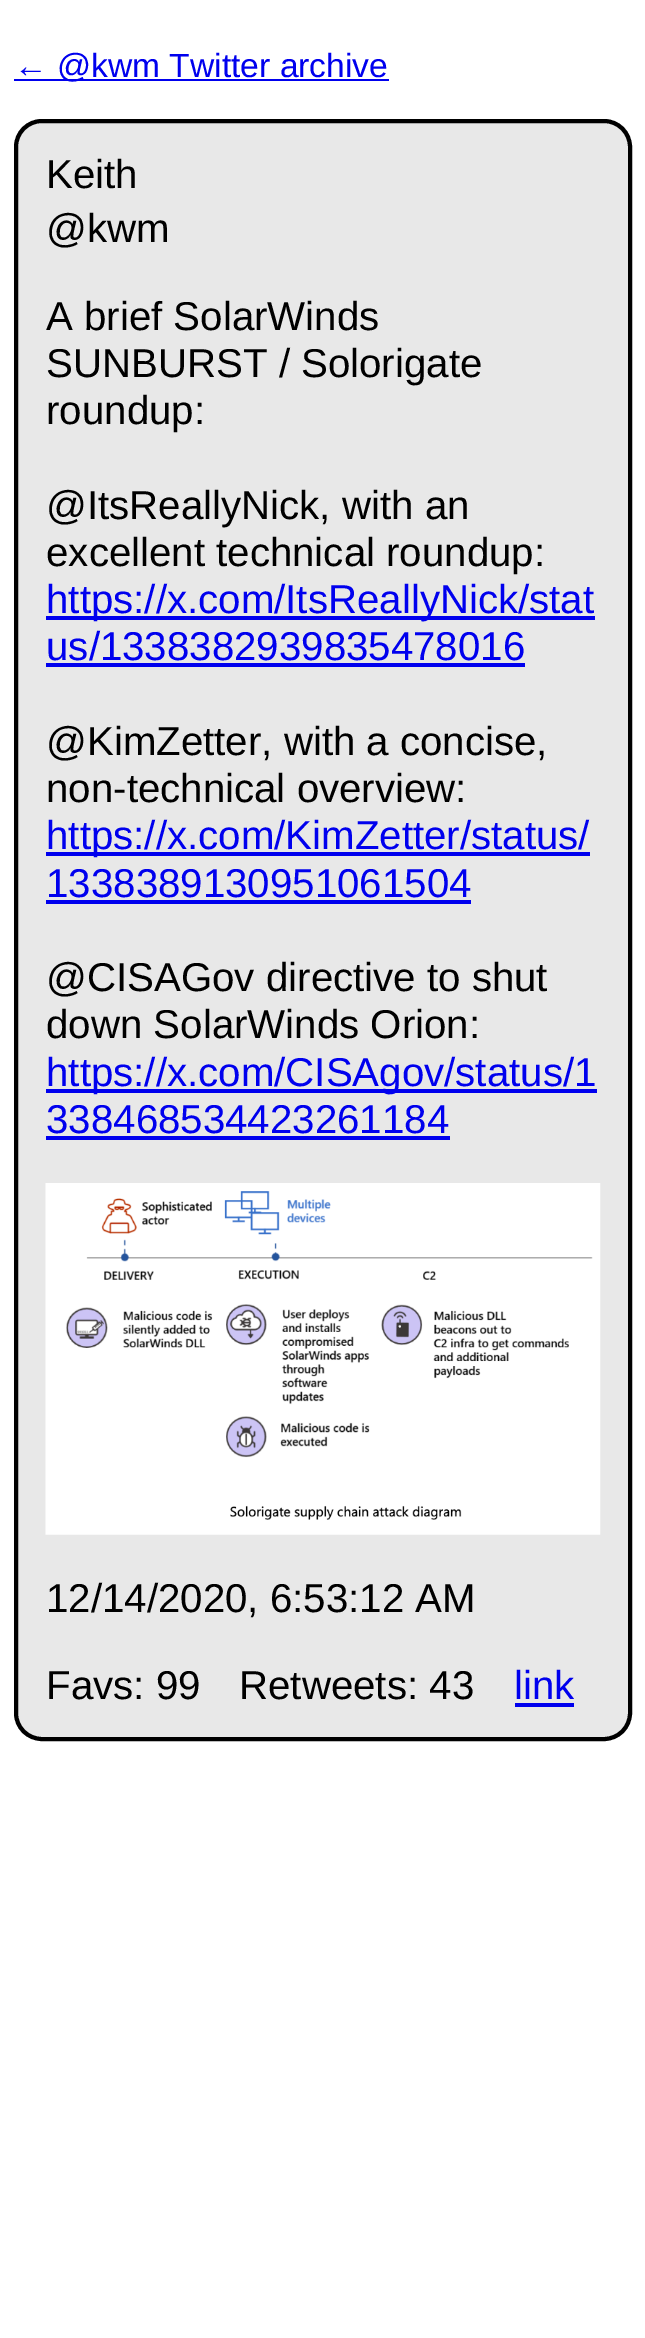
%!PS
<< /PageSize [645 2338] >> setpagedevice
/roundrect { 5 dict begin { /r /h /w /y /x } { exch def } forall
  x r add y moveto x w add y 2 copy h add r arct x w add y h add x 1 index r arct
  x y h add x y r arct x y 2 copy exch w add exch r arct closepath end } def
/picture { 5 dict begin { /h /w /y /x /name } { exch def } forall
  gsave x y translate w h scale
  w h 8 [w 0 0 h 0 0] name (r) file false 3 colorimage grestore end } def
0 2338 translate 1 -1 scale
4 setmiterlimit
1 setgray
0 0 645 2338 rectfill
0 0 0.933 setrgbcolor
14 79 375 2 rectfill
/LiberationSans-Regular [33.6 0 0 -33.6 0 0] selectfont
14 77 moveto (← @kwm Twitter archive) show
0.91 setgray
16 121 614 1618 26 roundrect gsave fill grestore
0 setgray
4 setlinewidth
stroke
/LiberationSans-Regular [40.25 0 0 -40.25 0 0] selectfont
46 188 moveto (Keith) show
46 242 moveto (@kwm) show
46 330 moveto (A brief SolarWinds) show
46 377 moveto (SUNBURST / Solorigate) show
46 424 moveto (roundup:) show
46 519 moveto (@ItsReallyNick, with an) show
46 566 moveto (excellent technical roundup:) show
0 0 0.933 setrgbcolor
46 616 549 4 rectfill
46 613 moveto (https://x.com/ItsReallyNick/stat) show
46 660 moveto (us/1338382939835478016) show
46 663 479 4 rectfill
0 setgray
46 755 moveto (@KimZetter, with a concise,) show
46 802 moveto (non-technical overview:) show
0 0 0.933 setrgbcolor
46 852 544 4 rectfill
46 849 moveto (https://x.com/KimZetter/status/) show
46 897 moveto (1338389130951061504) show
46 900 425 4 rectfill
0 setgray
46 991 moveto (@CISAGov directive to shut) show
46 1038 moveto (down SolarWinds Orion:) show
0 0 0.933 setrgbcolor
46 1089 551 4 rectfill
46 1086 moveto (https://x.com/CISAgov/status/1) show
46 1133 moveto (338468534423261184) show
46 1136 404 4 rectfill
(img1.rgb) 45 1183 556 352 picture
0 setgray
46 1612 moveto (12/14/2020, 6:53:12 AM) show
46 1699 moveto (Favs: 99) show
239 1699 moveto (Retweets: 43) show
0 0 0.933 setrgbcolor
514 1699 moveto (link) show
515 1703 59 4 rectfill
showpage
